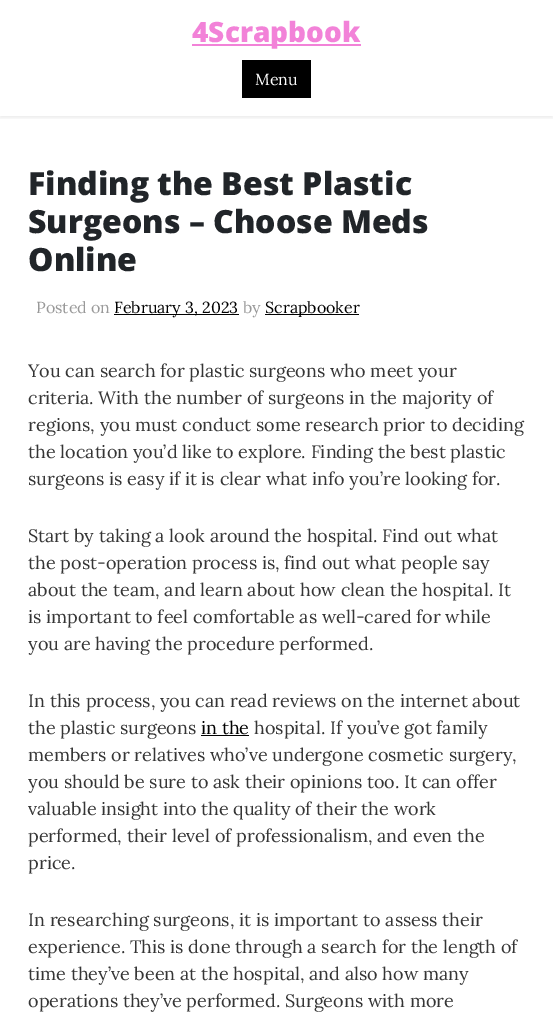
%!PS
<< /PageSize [553 1027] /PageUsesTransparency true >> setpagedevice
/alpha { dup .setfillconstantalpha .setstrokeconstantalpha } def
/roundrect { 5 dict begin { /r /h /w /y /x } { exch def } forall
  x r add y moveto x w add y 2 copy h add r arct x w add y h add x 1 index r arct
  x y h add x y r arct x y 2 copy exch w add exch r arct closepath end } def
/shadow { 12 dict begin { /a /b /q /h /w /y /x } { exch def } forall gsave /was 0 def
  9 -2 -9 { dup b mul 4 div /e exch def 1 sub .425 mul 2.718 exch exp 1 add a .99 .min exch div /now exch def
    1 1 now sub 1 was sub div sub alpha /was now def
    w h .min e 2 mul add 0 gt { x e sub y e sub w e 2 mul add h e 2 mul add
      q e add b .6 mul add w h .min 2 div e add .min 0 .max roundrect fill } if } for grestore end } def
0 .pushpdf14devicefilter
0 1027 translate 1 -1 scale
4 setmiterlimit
1 setgray
0 0 553 1027 rectfill
gsave
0 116 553 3 rectclip
0 setgray
0 2 553 116 0 2 0.07 shadow
grestore
0.949 0.51 0.847 setrgbcolor
192 44 169 2 rectfill
/OpenSans-ExtraBold [28 0 0 -28 0 0] selectfont
192 42 moveto (4Scrapbook) show
0 setgray
242 60 69 38 rectfill
/Lora-Regular [16 0 0 -16 0 0] selectfont
1 setgray
255 85 moveto (Menu) show
/OpenSans-ExtraBold [32 0 0 -32 0 0] selectfont
0.129 0.145 0.161 setrgbcolor
28 195 moveto (Finding the Best Plastic) show
28 233 moveto (Surgeons – Choose Meds) show
28 271 moveto (Online) show
/Lora-Regular [16 0 0 -16 0 0] selectfont
0.6 setgray
36 313 moveto (Posted on) show
0 setgray
114 314 125 1 rectfill
114 313 moveto (February 3, 2023) show
0.6 setgray
243 313 moveto (by) show
0 setgray
265 314 94 1 rectfill
265 313 moveto (Scrapbooker) show
/Lora-Regular [18 0 0 -18 0 0] selectfont
0.208 setgray
28 377 moveto (You can search for plastic surgeons who meet your) show
28 404 moveto (criteria. With the number of surgeons in the majority of) show
28 431 moveto (regions, you must conduct some research prior to deciding) show
28 458 moveto (the location you’d like to explore. Finding the best plastic) show
28 485 moveto (surgeons is easy if it is clear what info you’re looking for.) show
28 542 moveto (Start by taking a look around the hospital. Find out what) show
28 569 moveto (the post-operation process is, find out what people say) show
28 596 moveto (about the team, and learn about how clean the hospital. It) show
28 623 moveto (is important to feel comfortable as well-cared for while) show
28 650 moveto (you are having the procedure performed.) show
28 707 moveto (In this process, you can read reviews on the internet about) show
28 734 moveto (the plastic surgeons) show
0 setgray
201 734 moveto (in the) show
201 735 48 1 rectfill
0.208 setgray
254 734 moveto (hospital. If you’ve got family) show
28 761 moveto (members or relatives who’ve undergone cosmetic surgery,) show
28 788 moveto (you should be sure to ask their opinions too. It can offer) show
28 815 moveto (valuable insight into the quality of their the work) show
28 842 moveto (performed, their level of professionalism, and even the) show
28 869 moveto (price.) show
28 926 moveto (In researching surgeons, it is important to assess their) show
28 953 moveto (experience. This is done through a search for the length of) show
28 980 moveto (time they’ve been at the hospital, and also how many) show
28 1007 moveto (operations they’ve performed. Surgeons with more) show
.poppdf14devicefilter showpage
